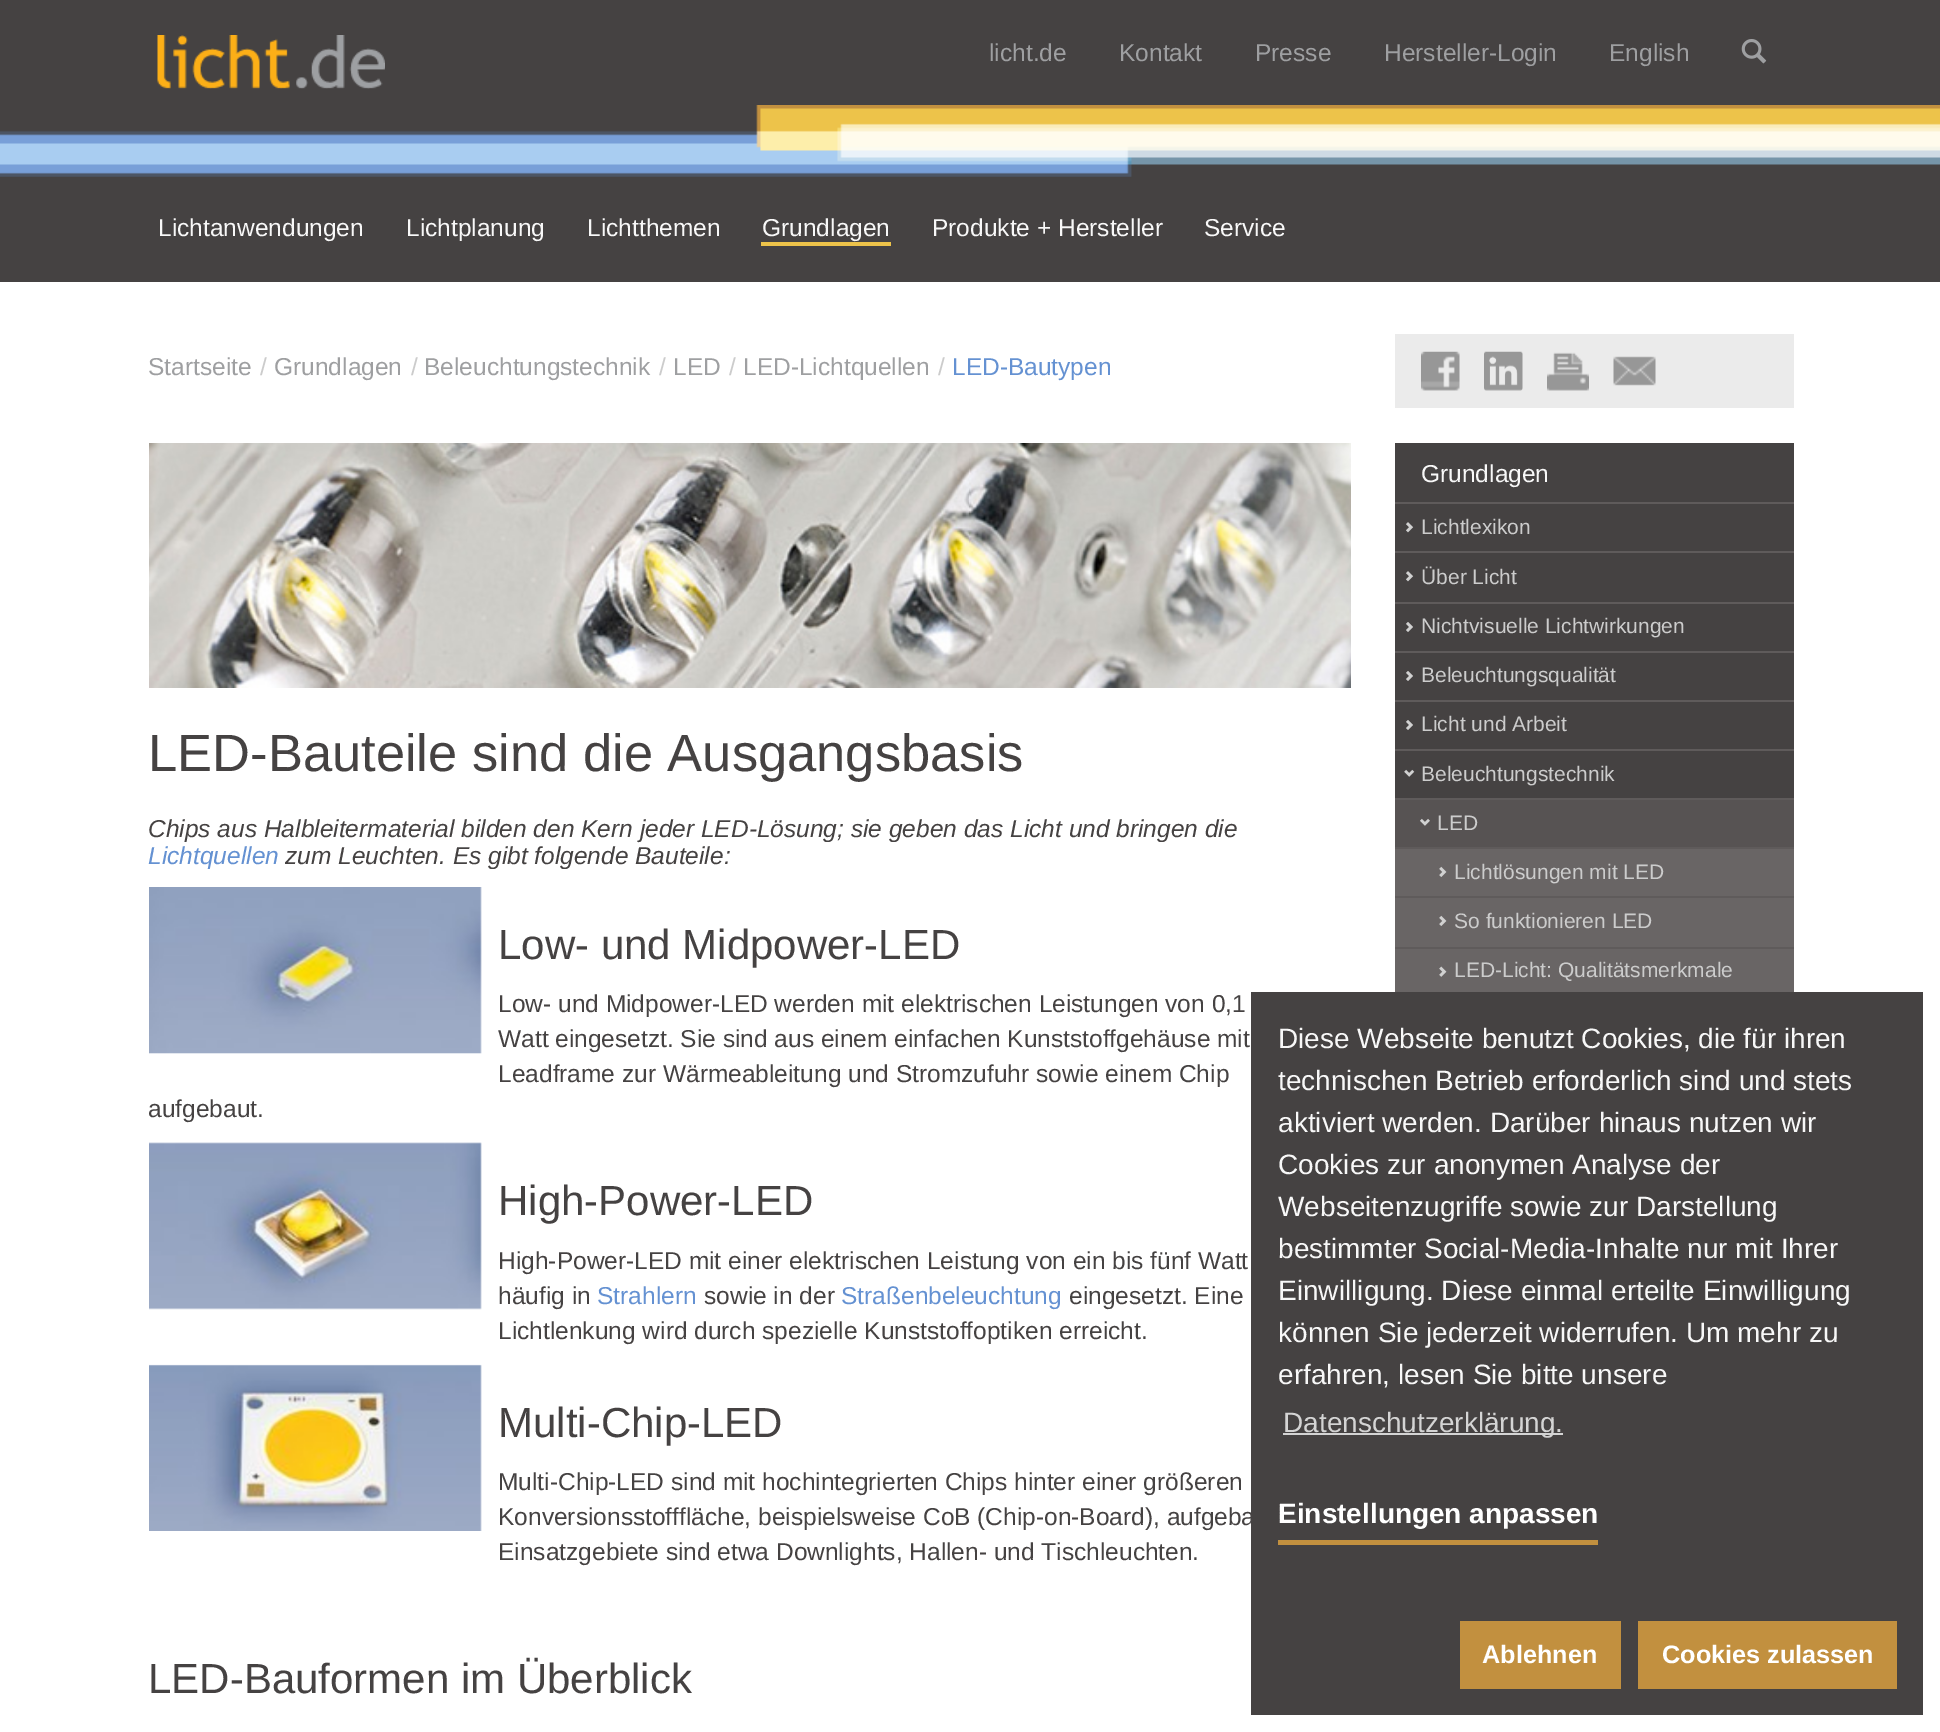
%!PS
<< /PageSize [1940 1732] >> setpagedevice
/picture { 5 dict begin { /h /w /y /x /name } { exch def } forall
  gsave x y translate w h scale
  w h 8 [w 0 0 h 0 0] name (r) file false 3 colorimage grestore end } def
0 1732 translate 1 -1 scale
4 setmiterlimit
0.271 0.259 0.259 setrgbcolor
0 0 1940 1732 rectfill
(img1.rgb) 157 35 228 54 picture
/LiberationSans-Regular [24.5 0 0 -24.5 0 0] selectfont
0.62 0.624 0.631 setrgbcolor
989 61 moveto (licht.de) show
1119 61 moveto (Kontakt) show
1255 61 moveto (Presse) show
1384 61 moveto (Hersteller-Login) show
1609 61 moveto (English) show
(img2.rgb) 1741 39 26 25 picture
(img3.rgb) 0 105 1940 72 picture
0.973 setgray
158 236 moveto (Lichtanwendungen) show
406 236 moveto (Lichtplanung) show
587 236 moveto (Lichtthemen) show
762 236 moveto (Grundlagen) show
0.929 0.765 0.29 setrgbcolor
761 242 130 4 rectfill
0.973 setgray
932 236 moveto (Produkte + Hersteller) show
1204 236 moveto (Service) show
1 setgray
0 282 1940 1450 rectfill
0.62 0.624 0.631 setrgbcolor
148 375 moveto (Startseite) show
0.8 setgray
260 375 moveto (/) show
0.62 0.624 0.631 setrgbcolor
274 375 moveto (Grundlagen) show
0.8 setgray
411 375 moveto (/) show
0.62 0.624 0.631 setrgbcolor
424 375 moveto (Beleuchtungstechnik) show
0.8 setgray
659 375 moveto (/) show
0.62 0.624 0.631 setrgbcolor
673 375 moveto (LED) show
0.8 setgray
729 375 moveto (/) show
0.62 0.624 0.631 setrgbcolor
743 375 moveto (LED-Lichtquellen) show
0.8 setgray
938 375 moveto (/) show
0.392 0.569 0.824 setrgbcolor
952 375 moveto (LED-Bautypen) show
(img4.rgb) 149 443 1202 245 picture
/LiberationSans-Regular [52.5 0 0 -52.5 0 0] selectfont
0.271 0.259 0.259 setrgbcolor
148 771 moveto (LED-Bauteile sind die Ausgangsbasis) show
/LiberationSans-Italic [24.5 0 0 -24.5 0 0] selectfont
148 837 moveto (Chips aus Halbleitermaterial bilden den Kern jeder LED-Lösung; sie geben das Licht und bringen die) show
0.392 0.569 0.824 setrgbcolor
148 864 moveto (Lichtquellen) show
0.271 0.259 0.259 setrgbcolor
285 864 moveto (zum Leuchten. Es gibt folgende Bauteile:) show
(img5.rgb) 149 887 333 167 picture
/LiberationSans-Regular [42 0 0 -42 0 0] selectfont
498 959 moveto (Low- und Midpower-LED) show
/LiberationSans-Regular [24.5 0 0 -24.5 0 0] selectfont
498 1012 moveto (Low- und Midpower-LED werden mit elektrischen Leistungen von 0,1) show
498 1047 moveto (Watt eingesetzt. Sie sind aus einem einfachen Kunststoffgehäuse mit) show
498 1082 moveto (Leadframe zur Wärmeableitung und Stromzufuhr sowie einem Chip) show
148 1117 moveto (aufgebaut.) show
(img6.rgb) 149 1142 333 168 picture
/LiberationSans-Regular [42 0 0 -42 0 0] selectfont
498 1215 moveto (High-Power-LED) show
/LiberationSans-Regular [24.5 0 0 -24.5 0 0] selectfont
498 1269 moveto (High-Power-LED mit einer elektrischen Leistung von ein bis fünf Watt) show
498 1304 moveto (häufig in) show
0.392 0.569 0.824 setrgbcolor
597 1304 moveto (Strahlern) show
0.271 0.259 0.259 setrgbcolor
704 1304 moveto (sowie in der) show
0.392 0.569 0.824 setrgbcolor
841 1304 moveto (Straßenbeleuchtung) show
0.271 0.259 0.259 setrgbcolor
1069 1304 moveto (eingesetzt. Eine) show
498 1339 moveto (Lichtlenkung wird durch spezielle Kunststoffoptiken erreicht.) show
(img7.rgb) 149 1364 333 167 picture
/LiberationSans-Regular [42 0 0 -42 0 0] selectfont
498 1437 moveto (Multi-Chip-LED) show
/LiberationSans-Regular [24.5 0 0 -24.5 0 0] selectfont
498 1490 moveto (Multi-Chip-LED sind mit hochintegrierten Chips hinter einer größeren) show
498 1525 moveto (Konversionsstofffläche, beispielsweise CoB \(Chip-on-Board\), aufgeba) show
498 1560 moveto (Einsatzgebiete sind etwa Downlights, Hallen- und Tischleuchten.) show
/LiberationSans-Regular [42 0 0 -42 0 0] selectfont
148 1693 moveto (LED-Bauformen im Überblick) show
0.922 setgray
1395 334 399 74 rectfill
(img8.rgb) 1421 351 39 40 picture
(img9.rgb) 1484 351 39 40 picture
(img10.rgb) 1547 352 42 39 picture
(img11.rgb) 1613 356 43 30 picture
0.271 0.259 0.259 setrgbcolor
1395 443 399 355 rectfill
/LiberationSans-Regular [24.5 0 0 -24.5 0 0] selectfont
0.973 setgray
1421 482 moveto (Grundlagen) show
0.373 0.357 0.357 setrgbcolor
1395 502 399 2 rectfill
1395 551 399 2 rectfill
(img12.rgb) 1406 522 8 11 picture
/LiberationSans-Regular [21 0 0 -21 0 0] selectfont
0.8 setgray
1421 534 moveto (Lichtlexikon) show
0.373 0.357 0.357 setrgbcolor
1395 602 399 2 rectfill
(img12.rgb) 1406 571 8 11 picture
0.8 setgray
1421 584 moveto (Über Licht) show
0.373 0.357 0.357 setrgbcolor
1395 651 399 2 rectfill
(img13.rgb) 1406 622 7 10 picture
0.8 setgray
1421 633 moveto (Nichtvisuelle Lichtwirkungen) show
0.373 0.357 0.357 setrgbcolor
1395 700 399 2 rectfill
(img13.rgb) 1406 671 7 10 picture
0.8 setgray
1421 682 moveto (Beleuchtungsqualität) show
0.373 0.357 0.357 setrgbcolor
1395 749 399 2 rectfill
(img13.rgb) 1406 720 7 10 picture
0.8 setgray
1421 731 moveto (Licht und Arbeit) show
0.373 0.357 0.357 setrgbcolor
1395 798 399 2 rectfill
(img14.rgb) 1404 769 11 8 picture
0.8 setgray
1421 781 moveto (Beleuchtungstechnik) show
0.341 0.325 0.325 setrgbcolor
1395 800 399 47 rectfill
0.373 0.357 0.357 setrgbcolor
1395 847 399 2 rectfill
(img15.rgb) 1420 818 10 8 picture
0.8 setgray
1437 830 moveto (LED) show
0.412 0.396 0.396 setrgbcolor
1395 849 399 47 rectfill
0.373 0.357 0.357 setrgbcolor
1395 896 399 2 rectfill
(img16.rgb) 1439 866 8 11 picture
0.8 setgray
1454 879 moveto (Lichtlösungen mit LED) show
0.412 0.396 0.396 setrgbcolor
1395 898 399 49 rectfill
0.373 0.357 0.357 setrgbcolor
1395 947 399 2 rectfill
(img16.rgb) 1439 915 8 11 picture
0.8 setgray
1454 928 moveto (So funktionieren LED) show
0.412 0.396 0.396 setrgbcolor
1395 949 399 43 rectfill
(img17.rgb) 1439 966 8 11 picture
0.8 setgray
1454 977 moveto (LED-Licht: Qualitätsmerkmale) show
0.271 0.259 0.259 setrgbcolor
1251 992 672 723 rectfill
/LiberationSans-Regular [28 0 0 -28 0 0] selectfont
0.973 setgray
1278 1048 moveto (Diese Webseite benutzt Cookies, die für ihren) show
1278 1090 moveto (technischen Betrieb erforderlich sind und stets) show
1278 1132 moveto (aktiviert werden. Darüber hinaus nutzen wir) show
1278 1174 moveto (Cookies zur anonymen Analyse der) show
1278 1216 moveto (Webseitenzugriffe sowie zur Darstellung) show
1278 1258 moveto (bestimmter Social-Media-Inhalte nur mit Ihrer) show
1278 1300 moveto (Einwilligung. Diese einmal erteilte Einwilligung) show
1278 1342 moveto (können Sie jederzeit widerrufen. Um mehr zu) show
1278 1384 moveto (erfahren, lesen Sie bitte unsere) show
0.831 setgray
1283 1433 280 2 rectfill
1283 1432 moveto (Datenschutzerklärung.) show
/LiberationSans-Bold [28 0 0 -28 0 0] selectfont
1 setgray
1278 1523 moveto (Einstellungen anpassen) show
0.761 0.565 0.247 setrgbcolor
1278 1540 320 5 rectfill
1460 1621 161 68 rectfill
/LiberationSans-Bold [25.25 0 0 -25.25 0 0] selectfont
1 setgray
1482 1663 moveto (Ablehnen) show
0.761 0.565 0.247 setrgbcolor
1638 1621 259 68 rectfill
1 setgray
1662 1663 moveto (Cookies zulassen) show
showpage
